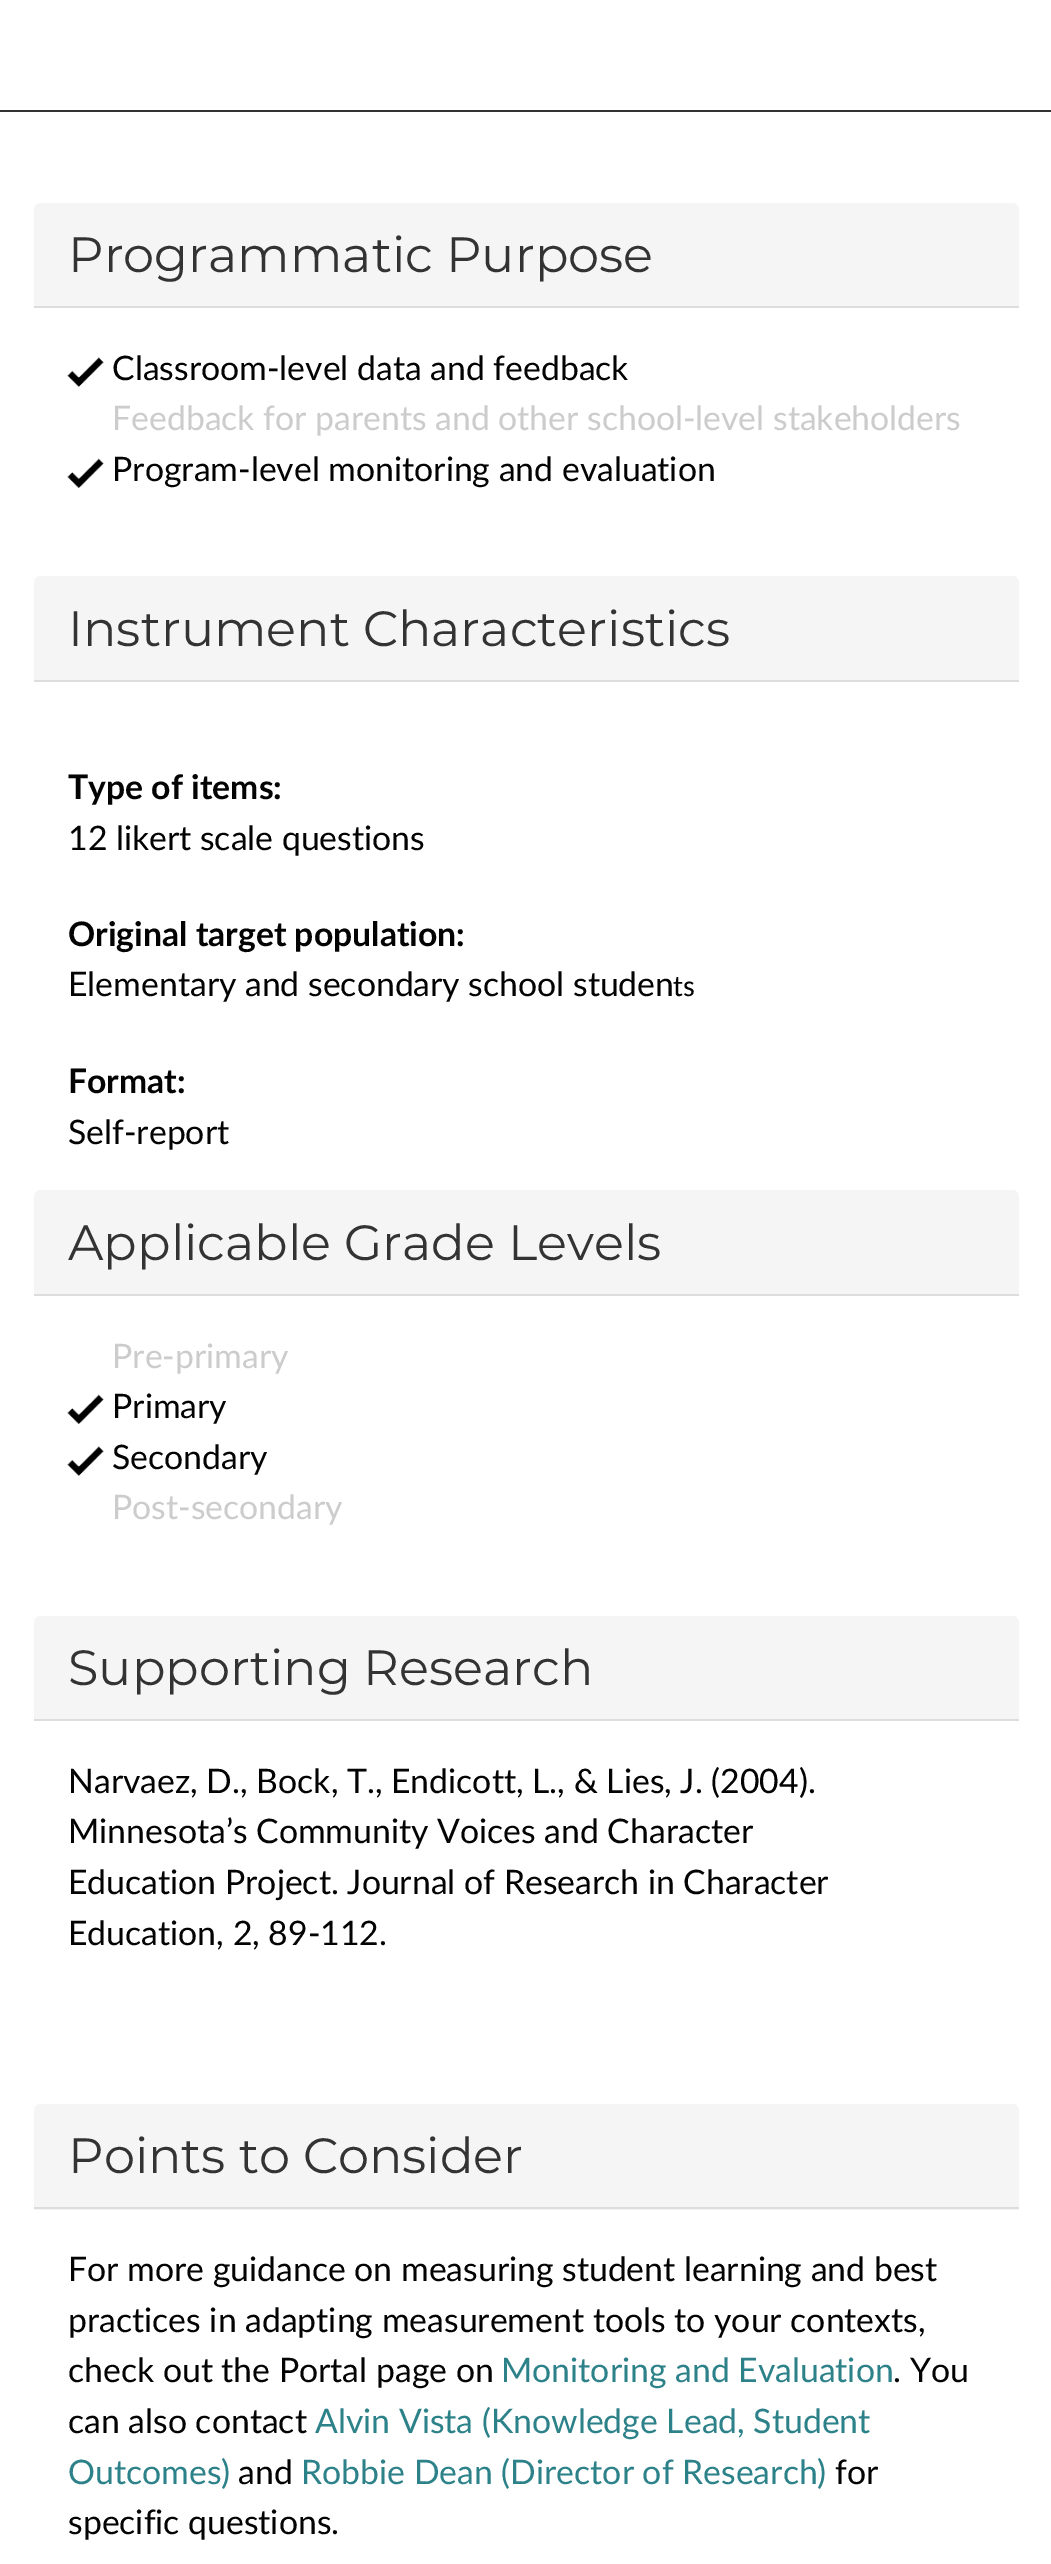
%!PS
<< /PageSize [1051 2564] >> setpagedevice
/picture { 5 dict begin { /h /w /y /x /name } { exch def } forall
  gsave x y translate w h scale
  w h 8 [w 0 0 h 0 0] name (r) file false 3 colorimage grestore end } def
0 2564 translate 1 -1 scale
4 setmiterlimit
1 setgray
0 0 1051 2564 rectfill
0.2 setgray
0 110 1051 2 rectfill
0.961 setgray
newpath 41 203 moveto 1012 203 lineto 1016 203 1019 206 1019 210 curveto 1019 308 lineto 34 308 lineto 34 210 lineto 34 206 37 203 41 203 curveto closepath fill
0.867 setgray
34 306 985 2 rectfill
/Montserrat-Regular [49.5 0 0 -49.5 0 0] selectfont
0.2 setgray
68 272 moveto (Programmatic Purpose) show
(img1.rgb) 67 357 37 30 picture
/Lato-Regular [33.75 0 0 -33.75 0 0] selectfont
0.012 setgray
112 380 moveto (Classroom-level data and feedback) show
0.8 setgray
112 430 moveto (Feedback for parents and other school-level stakeholders) show
(img2.rgb) 67 458 37 30 picture
0.012 setgray
112 481 moveto (Program-level monitoring and evaluation) show
0.961 setgray
newpath 41 576 moveto 1012 576 lineto 1016 576 1019 579 1019 583 curveto 1019 682 lineto 34 682 lineto 34 583 lineto 34 579 37 576 41 576 curveto closepath fill
0.867 setgray
34 680 985 2 rectfill
/Montserrat-Regular [49.5 0 0 -49.5 0 0] selectfont
0.2 setgray
68 646 moveto (Instrument Characteristics) show
/Lato-Bold [33.75 0 0 -33.75 0 0] selectfont
0.012 setgray
68 799 moveto (Type of items:) show
/Lato-Regular [33.75 0 0 -33.75 0 0] selectfont
68 850 moveto (12 likert scale questions) show
/Lato-Bold [33.75 0 0 -33.75 0 0] selectfont
68 946 moveto (Original target population:) show
/Lato-Regular [33.75 0 0 -33.75 0 0] selectfont
68 996 moveto (Elementary and secondary school studen) show
/Carlito-Regular [30 0 0 -30 0 0] selectfont
673 996 moveto (ts) show
/Lato-Bold [33.75 0 0 -33.75 0 0] selectfont
68 1093 moveto (Format:) show
/Lato-Regular [33.75 0 0 -33.75 0 0] selectfont
68 1144 moveto (Self-report) show
0.961 setgray
newpath 41 1190 moveto 1012 1190 lineto 1016 1190 1019 1193 1019 1197 curveto 1019 1296 lineto 34 1296 lineto 34 1197 lineto 34 1193 37 1190 41 1190 curveto closepath fill
0.867 setgray
34 1294 985 2 rectfill
/Montserrat-Regular [49.5 0 0 -49.5 0 0] selectfont
0.2 setgray
68 1260 moveto (Applicable Grade Levels) show
/Lato-Regular [33.75 0 0 -33.75 0 0] selectfont
0.8 setgray
112 1368 moveto (Pre-primary) show
(img3.rgb) 67 1394 37 30 picture
0.012 setgray
112 1418 moveto (Primary) show
(img1.rgb) 67 1446 37 30 picture
112 1469 moveto (Secondary) show
0.8 setgray
112 1519 moveto (Post-secondary) show
0.961 setgray
newpath 41 1616 moveto 1012 1616 lineto 1016 1616 1019 1619 1019 1623 curveto 1019 1721 lineto 34 1721 lineto 34 1623 lineto 34 1619 37 1616 41 1616 curveto closepath fill
0.867 setgray
34 1719 985 2 rectfill
/Montserrat-Regular [49.5 0 0 -49.5 0 0] selectfont
0.2 setgray
68 1685 moveto (Supporting Research) show
/Lato-Regular [33.75 0 0 -33.75 0 0] selectfont
0.012 setgray
68 1793 moveto (Narvaez, D., Bock, T., Endicott, L., & Lies, J. \(2004\).) show
68 1843 moveto (Minnesota’s Community Voices and Character) show
68 1894 moveto (Education Project. Journal of Research in Character) show
68 1945 moveto (Education, 2, 89-112.) show
0.961 setgray
newpath 41 2104 moveto 1012 2104 lineto 1016 2104 1019 2107 1019 2111 curveto 1019 2210 lineto 34 2210 lineto 34 2111 lineto 34 2107 37 2104 41 2104 curveto closepath fill
0.867 setgray
34 2207 985 2 rectfill
/Montserrat-Regular [49.5 0 0 -49.5 0 0] selectfont
0.2 setgray
68 2173 moveto (Points to Consider) show
/Lato-Regular [33.75 0 0 -33.75 0 0] selectfont
0.012 setgray
68 2281 moveto (For more guidance on measuring student learning and best) show
68 2332 moveto (practices in adapting measurement tools to your contexts,) show
68 2382 moveto (check out the Portal page on) show
0.176 0.51 0.541 setrgbcolor
501 2382 moveto (Monitoring and Evaluation) show
0.012 setgray
893 2382 moveto (. You) show
68 2433 moveto (can also contact) show
0.176 0.51 0.541 setrgbcolor
315 2433 moveto (Alvin Vista \(Knowledge Lead, Student) show
68 2484 moveto (Outcomes\)) show
0.012 setgray
238 2484 moveto (and) show
0.176 0.51 0.541 setrgbcolor
301 2484 moveto (Robbie Dean \(Director of Research\)) show
0.012 setgray
835 2484 moveto (for) show
68 2534 moveto (specific questions.) show
showpage
